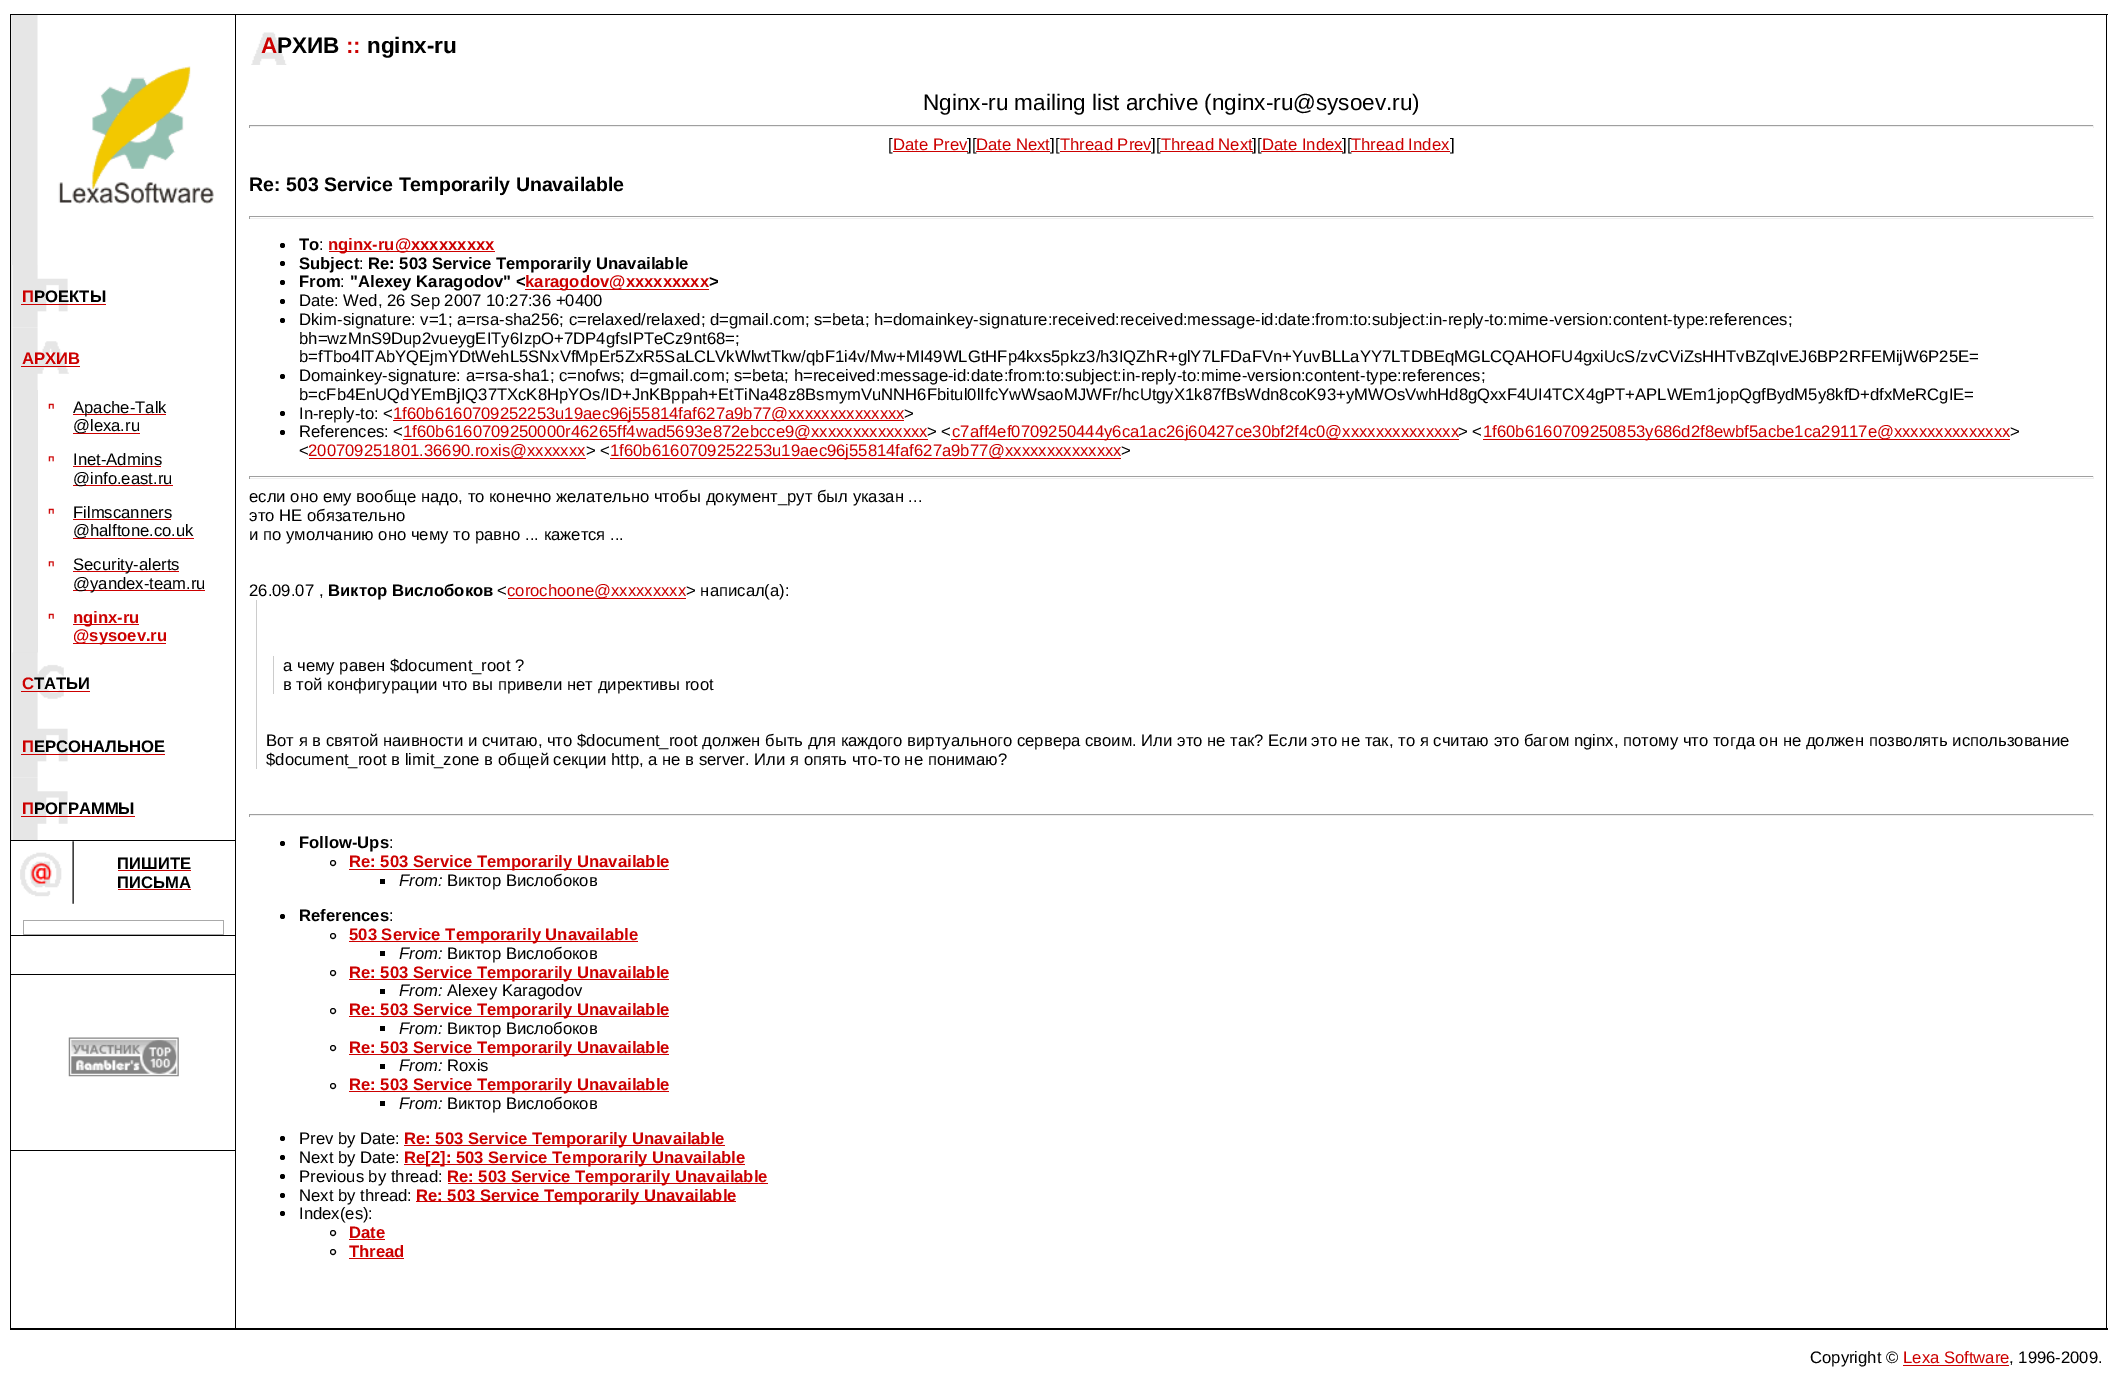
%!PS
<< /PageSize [2117 1392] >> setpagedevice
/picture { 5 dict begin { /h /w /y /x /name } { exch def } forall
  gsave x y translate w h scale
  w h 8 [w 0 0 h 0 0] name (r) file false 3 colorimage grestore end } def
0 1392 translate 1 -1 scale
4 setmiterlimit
1 setgray
0 0 2117 1392 rectfill
0 setgray
10 14 2098 1 rectfill
10 15 1 1313 rectfill
(img1.rgb) 11 15 203 250 picture
0.902 setgray
11 265 1 575 rectfill
(img2.rgb) 12 265 56 63 picture
/LiberationSans-Bold [16.67 0 0 -16.67 0 0] selectfont
0.8 0 0 setrgbcolor
22 302 moveto (П) show
0 setgray
34 302 moveto (РОЕКТЫ) show
0.8 0 0 setrgbcolor
21 304 85 1 rectfill
(img3.rgb) 12 327 57 63 picture
22 364 moveto (АРХИВ) show
21 366 59 1 rectfill
0.902 setgray
13 390 25 263 rectfill
(img4.rgb) 48 403 6 6 picture
0.8 0 0 setrgbcolor
73 414 93 1 rectfill
/LiberationSans-Regular [16.67 0 0 -16.67 0 0] selectfont
0 setgray
73 413 moveto (Apache-Talk) show
0.8 0 0 setrgbcolor
73 433 67 1 rectfill
0 setgray
73 431 moveto (@lexa.ru) show
(img5.rgb) 48 456 6 6 picture
73 465 moveto (Inet-Admins) show
0.8 0 0 setrgbcolor
73 466 88 1 rectfill
73 485 100 1 rectfill
0 setgray
73 484 moveto (@info.east.ru) show
(img4.rgb) 48 508 6 6 picture
73 518 moveto (Filmscanners) show
0.8 0 0 setrgbcolor
73 519 98 1 rectfill
73 538 121 1 rectfill
0 setgray
73 536 moveto (@halftone.co.uk) show
(img5.rgb) 48 561 6 6 picture
0.8 0 0 setrgbcolor
73 571 106 1 rectfill
0 setgray
73 570 moveto (Security-alerts) show
0.8 0 0 setrgbcolor
73 590 132 1 rectfill
0 setgray
73 589 moveto (@yandex-team.ru) show
(img4.rgb) 48 613 6 6 picture
0.8 0 0 setrgbcolor
73 624 66 1 rectfill
/LiberationSans-Bold [16.67 0 0 -16.67 0 0] selectfont
73 623 moveto (nginx-ru) show
73 643 93 1 rectfill
73 641 moveto (@sysoev.ru) show
(img6.rgb) 12 652 52 63 picture
22 689 moveto (С) show
21 691 69 1 rectfill
0 setgray
34 689 moveto (ТАТЬИ) show
(img2.rgb) 12 715 56 63 picture
0.8 0 0 setrgbcolor
22 752 moveto (П) show
0 setgray
34 752 moveto (ЕРСОНАЛЬНОЕ) show
0.8 0 0 setrgbcolor
21 754 144 1 rectfill
(img7.rgb) 12 777 56 63 picture
22 814 moveto (П) show
0 setgray
34 814 moveto (РОГРАММЫ) show
0.8 0 0 setrgbcolor
21 816 114 1 rectfill
0 setgray
11 840 224 1 rectfill
(img8.rgb) 20 841 54 63 picture
117 869 moveto (ПИШИТЕ) show
0.8 0 0 setrgbcolor
118 870 73 1 rectfill
0 setgray
117 888 moveto (ПИСЬМА) show
0.8 0 0 setrgbcolor
118 889 73 1 rectfill
0.667 setgray
23 920 201 15 rectfill
1 setgray
24 921 199 13 rectfill
0 setgray
11 935 224 1 rectfill
11 974 224 1 rectfill
(img9.rgb) 68 1037 111 40 picture
11 1150 224 1 rectfill
235 15 1 1313 rectfill
(img10.rgb) 251 32 36 33 picture
/LiberationSans-Bold [22.5 0 0 -22.5 0 0] selectfont
0.8 0 0 setrgbcolor
261 53 moveto (А) show
0 setgray
277 53 moveto (РХИВ) show
0.8 0 0 setrgbcolor
346 53 moveto (::) show
0 setgray
367 53 moveto (nginx-ru) show
/LiberationSans-Regular [22.5 0 0 -22.5 0 0] selectfont
923 110 moveto (Nginx-ru mailing list archive \(nginx-ru@sysoev.ru\)) show
0.624 setgray
249 125 1845 1 rectfill
0.933 setgray
2093 125 1 3 rectfill
249 126 1845 1 rectfill
0.624 setgray
249 125 1 3 rectfill
/LiberationSans-Regular [16.67 0 0 -16.67 0 0] selectfont
0 setgray
888 150 moveto ([) show
0.8 0 0 setrgbcolor
893 150 moveto (Date Prev) show
893 151 75 1 rectfill
0 setgray
967 150 moveto (][) show
0.8 0 0 setrgbcolor
976 150 moveto (Date Next) show
976 151 74 1 rectfill
0 setgray
1050 150 moveto (][) show
0.8 0 0 setrgbcolor
1060 150 moveto (Thread Prev) show
1060 151 91 1 rectfill
0 setgray
1151 150 moveto (][) show
0.8 0 0 setrgbcolor
1161 150 moveto (Thread Next) show
1160 151 93 1 rectfill
0 setgray
1252 150 moveto (][) show
0.8 0 0 setrgbcolor
1262 150 moveto (Date Index) show
1261 151 82 1 rectfill
0 setgray
1342 150 moveto (][) show
0.8 0 0 setrgbcolor
1351 150 moveto (Thread Index) show
1351 151 99 1 rectfill
0 setgray
1450 150 moveto (]) show
/LiberationSans-Bold [19.5 0 0 -19.5 0 0] selectfont
249 191 moveto (Re: 503 Service Temporarily Unavailable) show
0.624 setgray
249 216 1845 1 rectfill
0.933 setgray
2093 216 1 3 rectfill
249 218 1845 1 rectfill
0.624 setgray
249 216 1 3 rectfill
0 setgray
newpath 282.5 245.5 2.5 0 360 arc closepath fill
/LiberationSans-Bold [16.67 0 0 -16.67 0 0] selectfont
299 250 moveto (To) show
/LiberationSans-Regular [16.67 0 0 -16.67 0 0] selectfont
319 250 moveto (:) show
0.8 0 0 setrgbcolor
329 251 166 1 rectfill
/LiberationSans-Bold [16.67 0 0 -16.67 0 0] selectfont
328 250 moveto (nginx-ru@xxxxxxxxx) show
0 setgray
newpath 282.5 263.5 2.5 0 360 arc closepath fill
299 269 moveto (Subject) show
/LiberationSans-Regular [16.67 0 0 -16.67 0 0] selectfont
359 269 moveto (:) show
/LiberationSans-Bold [16.67 0 0 -16.67 0 0] selectfont
368 269 moveto (Re: 503 Service Temporarily Unavailable) show
newpath 282.5 282.5 2.5 0 360 arc closepath fill
299 287 moveto (From) show
/LiberationSans-Regular [16.67 0 0 -16.67 0 0] selectfont
340 287 moveto (:) show
/LiberationSans-Bold [16.67 0 0 -16.67 0 0] selectfont
350 287 moveto ("Alexey Karagodov" <) show
0.8 0 0 setrgbcolor
525 289 184 1 rectfill
525 287 moveto (karagodov@xxxxxxxxx) show
0 setgray
709 287 moveto (>) show
newpath 282.5 301.5 2.5 0 360 arc closepath fill
/LiberationSans-Regular [16.67 0 0 -16.67 0 0] selectfont
299 306 moveto (Date: Wed, 26 Sep 2007 10:27:36 +0400) show
newpath 282.5 320.5 2.5 0 360 arc closepath fill
299 325 moveto (Dkim-signature: v=1; a=rsa-sha256; c=relaxed/relaxed; d=gmail.com; s=beta; h=domainkey-signature:received:received:message-id:date:from:to:subject:in-reply-to:mime-version:content-type:references;) show
299 344 moveto (bh=wzMnS9Dup2vueygEITy6IzpO+7DP4gfsIPTeCz9nt68=;) show
299 362 moveto (b=fTbo4lTAbYQEjmYDtWehL5SNxVfMpEr5ZxR5SaLCLVkWlwtTkw/qbF1i4v/Mw+MI49WLGtHFp4kxs5pkz3/h3IQZhR+glY7LFDaFVn+YuvBLLaYY7LTDBEqMGLCQAHOFU4gxiUcS/zvCViZsHHTvBZqIvEJ6BP2RFEMijW6P25E=) show
newpath 282.5 376.5 2.5 0 360 arc closepath fill
299 381 moveto (Domainkey-signature: a=rsa-sha1; c=nofws; d=gmail.com; s=beta; h=received:message-id:date:from:to:subject:in-reply-to:mime-version:content-type:references;) show
299 400 moveto (b=cFb4EnUQdYEmBjIQ37TXcK8HpYOs/ID+JnKBppah+EtTiNa48z8BsmymVuNNH6Fbitul0lIfcYwWsaoMJWFr/hcUtgyX1k87fBsWdn8coK93+yMWOsVwhHd8gQxxF4UI4TCX4gPT+APLWEm1jopQgfBydM5y8kfD+dfxMeRCgIE=) show
newpath 282.5 413.5 2.5 0 360 arc closepath fill
299 419 moveto (In-reply-to: <) show
0.8 0 0 setrgbcolor
393 420 511 1 rectfill
393 419 moveto (1f60b6160709252253u19aec96j55814faf627a9b77@xxxxxxxxxxxxxx) show
0 setgray
904 419 moveto (>) show
newpath 282.5 432.5 2.5 0 360 arc closepath fill
299 437 moveto (References: <) show
0.8 0 0 setrgbcolor
403 439 525 1 rectfill
403 437 moveto (1f60b6160709250000r46265ff4wad5693e872ebcce9@xxxxxxxxxxxxxx) show
0 setgray
927 437 moveto (> <) show
0.8 0 0 setrgbcolor
951 439 508 1 rectfill
952 437 moveto (c7aff4ef0709250444y6ca1ac26j60427ce30bf2f4c0@xxxxxxxxxxxxxx) show
0 setgray
1458 437 moveto (> <) show
0.8 0 0 setrgbcolor
1483 439 527 1 rectfill
1483 437 moveto (1f60b6160709250853y686d2f8ewbf5acbe1ca29117e@xxxxxxxxxxxxxx) show
0 setgray
2010 437 moveto (>) show
299 456 moveto (<) show
0.8 0 0 setrgbcolor
309 458 277 1 rectfill
308 456 moveto (200709251801.36690.roxis@xxxxxxx) show
0 setgray
586 456 moveto (> <) show
0.8 0 0 setrgbcolor
610 458 511 1 rectfill
610 456 moveto (1f60b6160709252253u19aec96j55814faf627a9b77@xxxxxxxxxxxxxx) show
0 setgray
1121 456 moveto (>) show
0.624 setgray
249 476 1845 1 rectfill
0.933 setgray
2093 476 1 3 rectfill
249 478 1845 1 rectfill
0.624 setgray
249 476 1 3 rectfill
0 setgray
249 502 moveto (если оно ему вообще надо, то конечно желательно чтобы документ_рут был указан ...) show
249 521 moveto (это НЕ обязательно) show
249 540 moveto (и по умолчанию оно чему то равно ... кажется ...) show
249 596 moveto (26.09.07 ,) show
/LiberationSans-Bold [16.67 0 0 -16.67 0 0] selectfont
328 596 moveto (Виктор Вислобоков) show
/LiberationSans-Regular [16.67 0 0 -16.67 0 0] selectfont
497 596 moveto (<) show
0.8 0 0 setrgbcolor
508 598 178 1 rectfill
507 596 moveto (corochoone@xxxxxxxxx) show
0 setgray
686 596 moveto (> написал\(а\):) show
0.8 setgray
256 600 1 169 rectfill
273 656 1 38 rectfill
0 setgray
283 671 moveto (а чему равен $document_root ?) show
283 690 moveto (в той конфигурации что вы привели нет директивы root) show
266 746 moveto (Вот я в святой наивности и считаю, что $document_root должен быть для каждого виртуального сервера своим. Или это не так? Если это не так, то я считаю это багом nginx, потому что тогда он не должен позволять использование) show
266 765 moveto ($document_root в limit_zone в общей секции http, а не в server. Или я опять что-то не понимаю?) show
0.624 setgray
249 814 1845 1 rectfill
0.933 setgray
2093 814 1 3 rectfill
249 815 1845 1 rectfill
0.624 setgray
249 814 1 3 rectfill
0 setgray
newpath 282.5 843.5 2.5 0 360 arc closepath fill
/LiberationSans-Bold [16.67 0 0 -16.67 0 0] selectfont
299 848 moveto (Follow-Ups) show
/LiberationSans-Regular [16.67 0 0 -16.67 0 0] selectfont
389 848 moveto (:) show
newpath 333 863 2.5 0 360 arc closepath stroke
0.8 0 0 setrgbcolor
349 869 320 1 rectfill
/LiberationSans-Bold [16.67 0 0 -16.67 0 0] selectfont
349 867 moveto (Re: 503 Service Temporarily Unavailable) show
0 setgray
380 879 5 5 rectfill
/LiberationSans-Italic [16.67 0 0 -16.67 0 0] selectfont
399 886 moveto (From:) show
/LiberationSans-Regular [16.67 0 0 -16.67 0 0] selectfont
447 886 moveto (Виктор Вислобоков) show
newpath 282.5 916.5 2.5 0 360 arc closepath fill
/LiberationSans-Bold [16.67 0 0 -16.67 0 0] selectfont
299 921 moveto (References) show
/LiberationSans-Regular [16.67 0 0 -16.67 0 0] selectfont
389 921 moveto (:) show
newpath 333 936 2.5 0 360 arc closepath stroke
0.8 0 0 setrgbcolor
349 941 289 1 rectfill
/LiberationSans-Bold [16.67 0 0 -16.67 0 0] selectfont
349 940 moveto (503 Service Temporarily Unavailable) show
0 setgray
380 951 5 5 rectfill
/LiberationSans-Italic [16.67 0 0 -16.67 0 0] selectfont
399 959 moveto (From:) show
/LiberationSans-Regular [16.67 0 0 -16.67 0 0] selectfont
447 959 moveto (Виктор Вислобоков) show
newpath 333 973 2.5 0 360 arc closepath stroke
0.8 0 0 setrgbcolor
349 979 320 1 rectfill
/LiberationSans-Bold [16.67 0 0 -16.67 0 0] selectfont
349 978 moveto (Re: 503 Service Temporarily Unavailable) show
0 setgray
380 989 5 5 rectfill
/LiberationSans-Italic [16.67 0 0 -16.67 0 0] selectfont
399 996 moveto (From:) show
/LiberationSans-Regular [16.67 0 0 -16.67 0 0] selectfont
447 996 moveto (Alexey Karagodov) show
newpath 333 1011 2.5 0 360 arc closepath stroke
0.8 0 0 setrgbcolor
349 1016 320 1 rectfill
/LiberationSans-Bold [16.67 0 0 -16.67 0 0] selectfont
349 1015 moveto (Re: 503 Service Temporarily Unavailable) show
0 setgray
380 1026 5 5 rectfill
/LiberationSans-Italic [16.67 0 0 -16.67 0 0] selectfont
399 1034 moveto (From:) show
/LiberationSans-Regular [16.67 0 0 -16.67 0 0] selectfont
447 1034 moveto (Виктор Вислобоков) show
newpath 333 1048 2.5 0 360 arc closepath stroke
0.8 0 0 setrgbcolor
349 1054 320 1 rectfill
/LiberationSans-Bold [16.67 0 0 -16.67 0 0] selectfont
349 1053 moveto (Re: 503 Service Temporarily Unavailable) show
0 setgray
380 1064 5 5 rectfill
/LiberationSans-Italic [16.67 0 0 -16.67 0 0] selectfont
399 1071 moveto (From:) show
/LiberationSans-Regular [16.67 0 0 -16.67 0 0] selectfont
447 1071 moveto (Roxis) show
newpath 333 1086 2.5 0 360 arc closepath stroke
0.8 0 0 setrgbcolor
349 1091 320 1 rectfill
/LiberationSans-Bold [16.67 0 0 -16.67 0 0] selectfont
349 1090 moveto (Re: 503 Service Temporarily Unavailable) show
0 setgray
380 1101 5 5 rectfill
/LiberationSans-Italic [16.67 0 0 -16.67 0 0] selectfont
399 1109 moveto (From:) show
/LiberationSans-Regular [16.67 0 0 -16.67 0 0] selectfont
447 1109 moveto (Виктор Вислобоков) show
newpath 282.5 1138.5 2.5 0 360 arc closepath fill
299 1144 moveto (Prev by Date:) show
0.8 0 0 setrgbcolor
404 1145 321 1 rectfill
/LiberationSans-Bold [16.67 0 0 -16.67 0 0] selectfont
404 1144 moveto (Re: 503 Service Temporarily Unavailable) show
0 setgray
newpath 282.5 1157.5 2.5 0 360 arc closepath fill
/LiberationSans-Regular [16.67 0 0 -16.67 0 0] selectfont
299 1163 moveto (Next by Date:) show
0.8 0 0 setrgbcolor
404 1164 341 1 rectfill
/LiberationSans-Bold [16.67 0 0 -16.67 0 0] selectfont
404 1163 moveto (Re[2]: 503 Service Temporarily Unavailable) show
0 setgray
newpath 282.5 1176.5 2.5 0 360 arc closepath fill
/LiberationSans-Regular [16.67 0 0 -16.67 0 0] selectfont
299 1182 moveto (Previous by thread:) show
0.8 0 0 setrgbcolor
448 1183 320 1 rectfill
/LiberationSans-Bold [16.67 0 0 -16.67 0 0] selectfont
447 1182 moveto (Re: 503 Service Temporarily Unavailable) show
0 setgray
newpath 282.5 1195.5 2.5 0 360 arc closepath fill
/LiberationSans-Regular [16.67 0 0 -16.67 0 0] selectfont
299 1201 moveto (Next by thread:) show
0.8 0 0 setrgbcolor
416 1201 320 1 rectfill
/LiberationSans-Bold [16.67 0 0 -16.67 0 0] selectfont
416 1201 moveto (Re: 503 Service Temporarily Unavailable) show
0 setgray
newpath 282.5 1213.5 2.5 0 360 arc closepath fill
/LiberationSans-Regular [16.67 0 0 -16.67 0 0] selectfont
299 1219 moveto (Index\(es\):) show
newpath 333 1233 2.5 0 360 arc closepath stroke
/LiberationSans-Bold [16.67 0 0 -16.67 0 0] selectfont
0.8 0 0 setrgbcolor
349 1238 moveto (Date) show
349 1239 36 1 rectfill
0 setgray
newpath 333 1252 2.5 0 360 arc closepath stroke
0.8 0 0 setrgbcolor
349 1257 moveto (Thread) show
349 1258 55 1 rectfill
0 setgray
2106 15 1 1313 rectfill
10 1328 2098 2 rectfill
/LiberationSans-Regular [16.67 0 0 -16.67 0 0] selectfont
1810 1363 moveto (Copyright ©) show
0.8 0 0 setrgbcolor
1903 1363 moveto (Lexa Software) show
1903 1365 106 1 rectfill
0 setgray
2009 1363 moveto (, 1996-2009.) show
showpage
